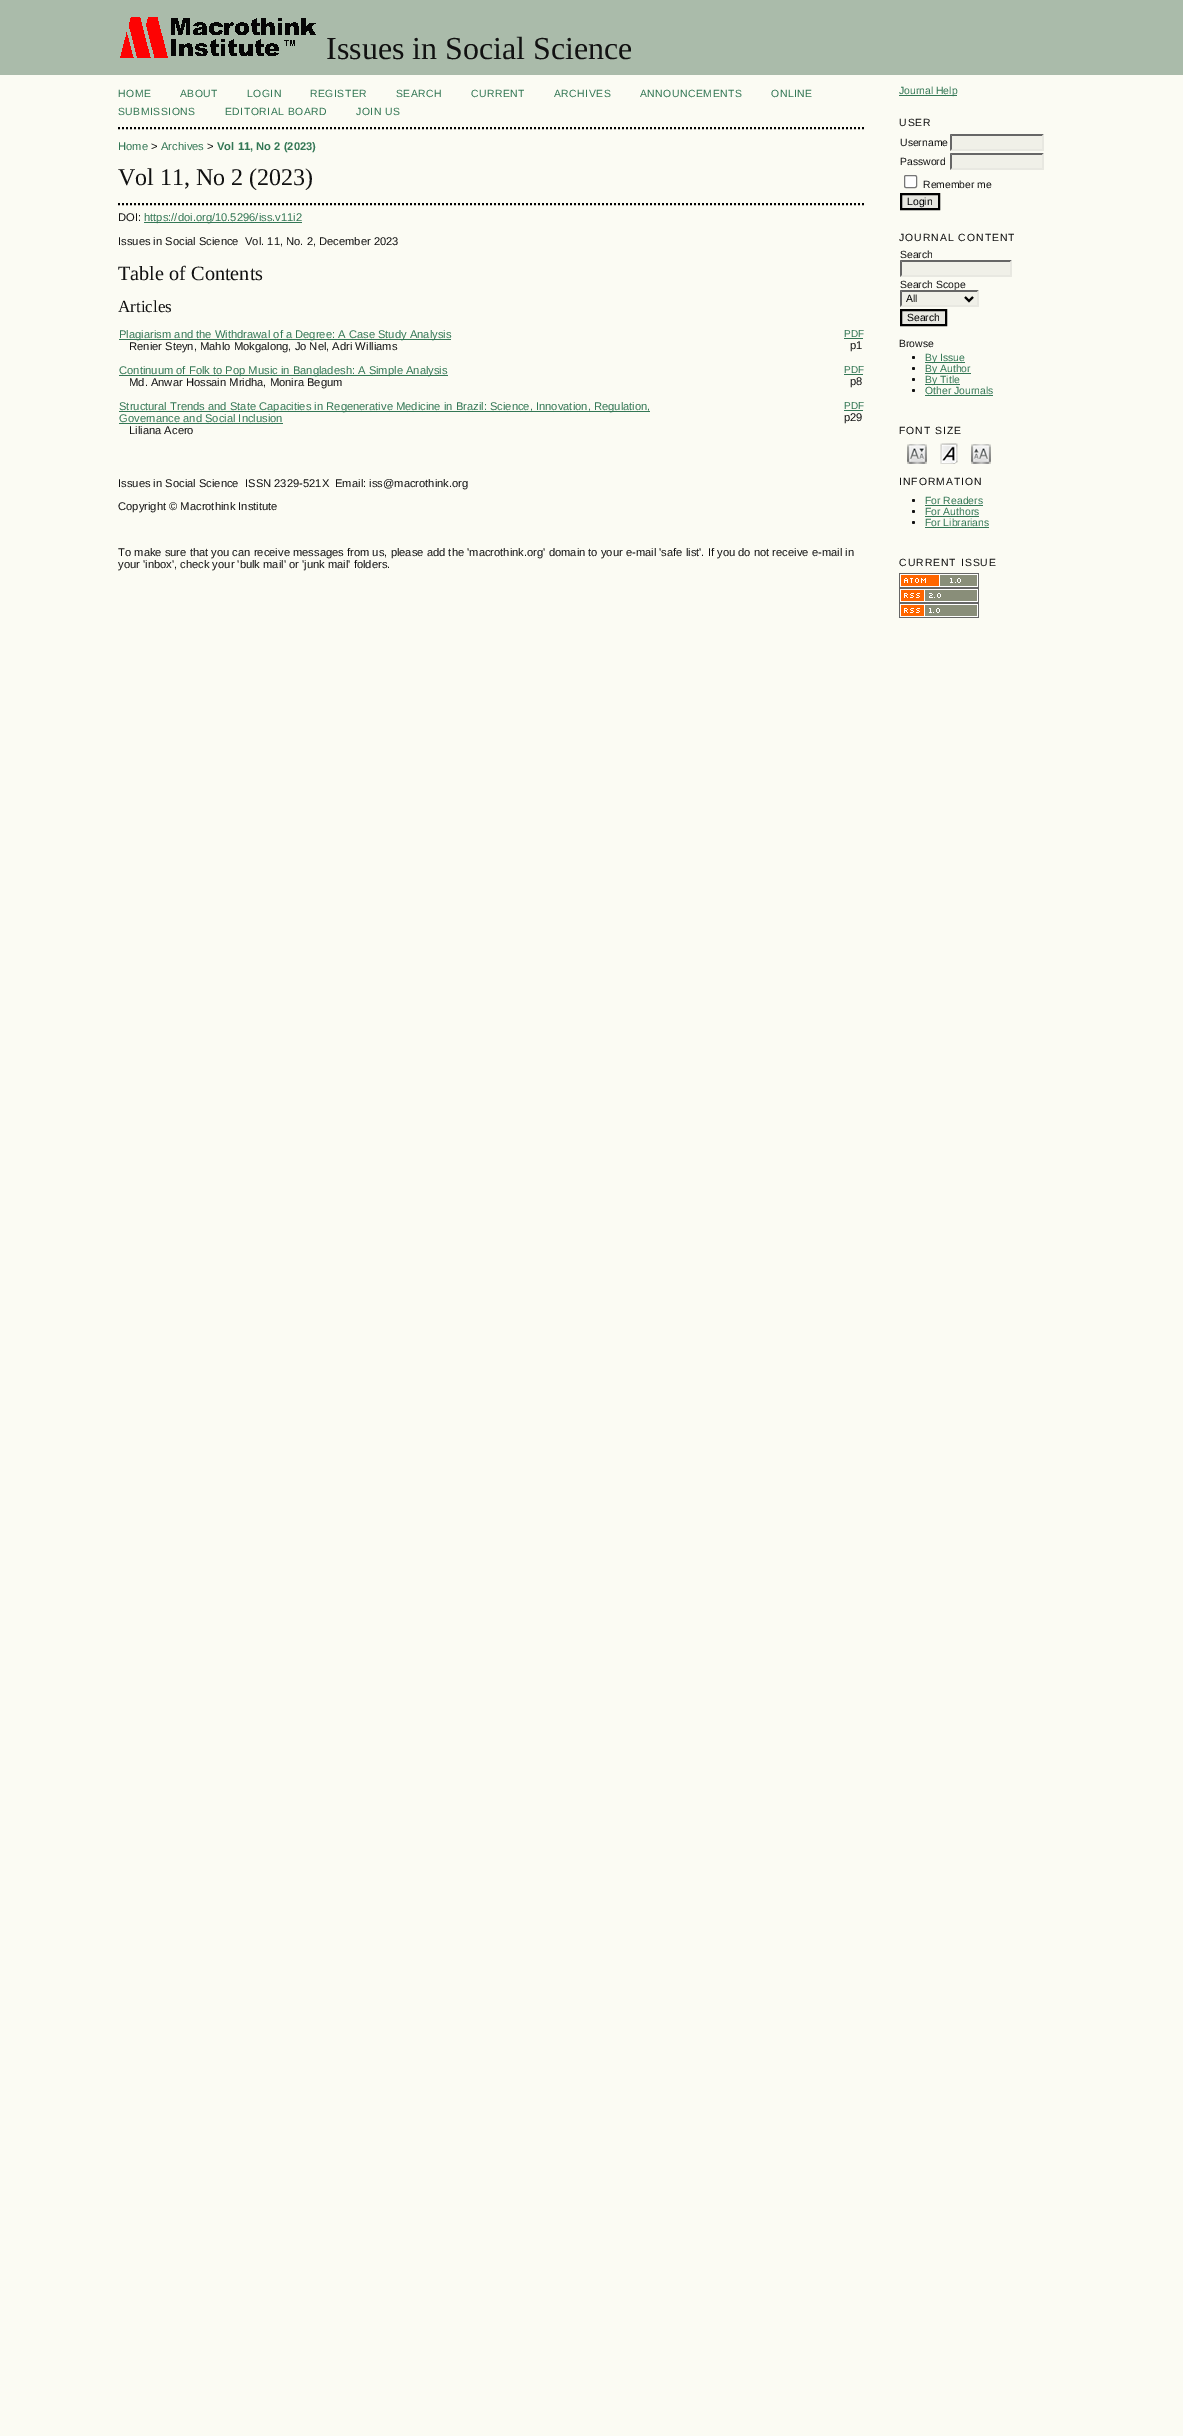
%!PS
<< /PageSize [1183 2436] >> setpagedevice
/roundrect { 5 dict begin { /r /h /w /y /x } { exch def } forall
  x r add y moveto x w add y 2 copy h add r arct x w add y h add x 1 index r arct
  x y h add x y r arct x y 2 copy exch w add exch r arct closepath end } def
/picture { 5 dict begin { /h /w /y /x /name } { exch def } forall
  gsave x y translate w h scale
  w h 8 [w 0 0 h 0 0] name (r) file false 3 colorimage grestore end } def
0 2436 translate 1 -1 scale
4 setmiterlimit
0.984 0.984 0.953 setrgbcolor
0 0 1183 2436 rectfill
0.667 0.733 0.667 setrgbcolor
0 0 1183 75 rectfill
(img1.rgb) 120 17 196 41 picture
/LiberationSerif-Regular [32 0 0 -32 0 0] selectfont
0.067 setgray
326 59 moveto (Issues in Social Science) show
0 setgray
2 setlinewidth
[2 2] 0 setdash
newpath 118 128 moveto 864 128 lineto stroke
/LiberationSans-Regular [10.4 0 0 -10.4 0 0] selectfont
0.2 0.467 0.333 setrgbcolor
118 97 moveto 0.5 0 (HOME) ashow
180 97 moveto 0.5 0 (ABOUT) ashow
247 97 moveto 0.5 0 (LOGIN) ashow
310 97 moveto 0.5 0 (REGISTER) ashow
396 97 moveto 0.5 0 (SEARCH) ashow
471 97 moveto 0.5 0 (CURRENT) ashow
554 97 moveto 0.5 0 (ARCHIVES) ashow
640 97 moveto 0.5 0 (ANNOUNCEMENTS) ashow
771 97 moveto 0.5 0 (ONLINE) ashow
118 115 moveto 0.5 0 (SUBMISSIONS) ashow
225 115 moveto 0.5 0 (EDITORIAL BOARD) ashow
356 115 moveto 0.5 0 (JOIN US) ashow
/LiberationSans-Regular [11.2 0 0 -11.2 0 0] selectfont
118 150 moveto (Home) show
0.067 setgray
151 150 moveto (>) show
0.2 0.467 0.333 setrgbcolor
161 150 moveto (Archives) show
0.067 setgray
207 150 moveto (>) show
/LiberationSans-Bold [11.2 0 0 -11.2 0 0] selectfont
0.2 0.467 0.333 setrgbcolor
217 150 moveto (Vol 11, No 2 \(2023\)) show
/LiberationSerif-Regular [24 0 0 -24 0 0] selectfont
0.067 setgray
118 185 moveto (Vol 11, No 2 \(2023\)) show
0 setgray
newpath 118 204 moveto 864 204 lineto stroke
/LiberationSans-Regular [11.2 0 0 -11.2 0 0] selectfont
0.067 setgray
118 221 moveto (DOI:) show
0.2 0.467 0.333 setrgbcolor
144 222 158 1 rectfill
144 221 moveto (https://doi.org/10.5296/iss.v11i2) show
0.067 setgray
118 245 moveto (Issues in Social Science  Vol. 11, No. 2, December 2023) show
/LiberationSerif-Regular [20.25 0 0 -20.25 0 0] selectfont
118 280 moveto (Table of Contents) show
/LiberationSerif-Regular [17 0 0 -17 0 0] selectfont
118 312 moveto (Articles) show
0.2 0.467 0.333 setrgbcolor
119 339 332 1 rectfill
/LiberationSans-Regular [11.2 0 0 -11.2 0 0] selectfont
119 338 moveto (Plagiarism and the Withdrawal of a Degree: A Case Study Analysis) show
0.067 setgray
129 350 moveto (Renier Steyn, Mahlo Mokgalong, Jo Nel, Adri Williams) show
/LiberationSans-Regular [10 0 0 -10 0 0] selectfont
0.2 0.467 0.333 setrgbcolor
844 337 moveto (PDF) show
844 338 19 1 rectfill
/LiberationSans-Regular [11.2 0 0 -11.2 0 0] selectfont
0.067 setgray
850 349 moveto (p1) show
0.2 0.467 0.333 setrgbcolor
119 375 329 1 rectfill
119 374 moveto (Continuum of Folk to Pop Music in Bangladesh: A Simple Analysis) show
0.067 setgray
129 386 moveto (Md. Anwar Hossain Mridha, Monira Begum) show
/LiberationSans-Regular [10 0 0 -10 0 0] selectfont
0.2 0.467 0.333 setrgbcolor
844 373 moveto (PDF) show
844 374 19 1 rectfill
/LiberationSans-Regular [11.2 0 0 -11.2 0 0] selectfont
0.067 setgray
850 385 moveto (p8) show
0.2 0.467 0.333 setrgbcolor
119 411 531 1 rectfill
119 410 moveto (Structural Trends and State Capacities in Regenerative Medicine in Brazil: Science, Innovation, Regulation,) show
119 422 moveto (Governance and Social Inclusion) show
119 423 164 1 rectfill
0.067 setgray
129 434 moveto (Liliana Acero) show
/LiberationSans-Regular [10 0 0 -10 0 0] selectfont
0.2 0.467 0.333 setrgbcolor
844 409 moveto (PDF) show
844 410 19 1 rectfill
/LiberationSans-Regular [11.2 0 0 -11.2 0 0] selectfont
0.067 setgray
844 421 moveto (p29) show
118 487 moveto (Issues in Social Science) show
245 487 moveto (ISSN 2329-521X) show
335 487 moveto (Email: iss@macrothink.org) show
118 510 moveto (Copyright © Macrothink Institute) show
118 556 moveto (To make sure that you can receive messages from us, please add the 'macrothink.org' domain to your e-mail 'safe list'. If you do not receive e-mail in) show
118 568 moveto (your 'inbox', check your 'bulk mail' or 'junk mail' folders.) show
0.2 0.467 0.333 setrgbcolor
899 95 58 1 rectfill
/LiberationSans-Regular [10.4 0 0 -10.4 0 0] selectfont
899 94 moveto (Journal Help) show
0.067 setgray
899 126 moveto 1 0 (USER) ashow
900 146 moveto (Username) show
0.941 0.941 0.91 setrgbcolor
950 134 94 17 rectfill
0.4 setgray
newpath 950 134 moveto 1044 134 lineto 1042 136 lineto 952 136 lineto closepath fill
0.91 0.91 0.882 setrgbcolor
newpath 1044 134 moveto 1044 151 lineto 1042 149 lineto 1042 136 lineto closepath fill
newpath 1044 151 moveto 950 151 lineto 952 149 lineto 1042 149 lineto closepath fill
0.4 setgray
newpath 950 151 moveto 950 134 lineto 952 136 lineto 952 149 lineto closepath fill
0.067 setgray
900 165 moveto (Password) show
0.941 0.941 0.91 setrgbcolor
950 153 94 17 rectfill
0.4 setgray
newpath 950 153 moveto 1044 153 lineto 1042 155 lineto 952 155 lineto closepath fill
0.91 0.91 0.882 setrgbcolor
newpath 1044 153 moveto 1044 170 lineto 1042 168 lineto 1042 155 lineto closepath fill
newpath 1044 170 moveto 950 170 lineto 952 168 lineto 1042 168 lineto closepath fill
0.4 setgray
newpath 950 170 moveto 950 153 lineto 952 155 lineto 952 168 lineto closepath fill
1 setgray
904.5 175.5 12 12 1.5 roundrect gsave fill grestore
0.463 setgray
1 setlinewidth
[] 0 setdash
stroke
0.067 setgray
923 188 moveto (Remember me) show
0.91 0.91 0.882 setrgbcolor
newpath 901 194 moveto 939 194 lineto 939 209 lineto 901 209 lineto closepath gsave fill grestore
0 setgray
2 setlinewidth
stroke
907 205 moveto (Login) show
0.067 setgray
899 241 moveto 1 0 (JOURNAL CONTENT) ashow
900 258 moveto (Search) show
0.941 0.941 0.91 setrgbcolor
900 260 112 17 rectfill
0.4 setgray
newpath 900 260 moveto 1012 260 lineto 1010 262 lineto 902 262 lineto closepath fill
0.91 0.91 0.882 setrgbcolor
newpath 1012 260 moveto 1012 277 lineto 1010 275 lineto 1010 262 lineto closepath fill
newpath 1012 277 moveto 900 277 lineto 902 275 lineto 1010 275 lineto closepath fill
0.4 setgray
newpath 900 277 moveto 900 260 lineto 902 262 lineto 902 275 lineto closepath fill
0.067 setgray
900 288 moveto (Search Scope) show
0.941 0.941 0.91 setrgbcolor
900 290 79 17 rectfill
0.4 setgray
newpath 900 290 moveto 979 290 lineto 977 292 lineto 902 292 lineto closepath fill
0.91 0.91 0.882 setrgbcolor
newpath 979 290 moveto 979 307 lineto 977 305 lineto 977 292 lineto closepath fill
newpath 979 307 moveto 900 307 lineto 902 305 lineto 977 305 lineto closepath fill
0.4 setgray
newpath 900 307 moveto 900 290 lineto 902 292 lineto 902 305 lineto closepath fill
0 setgray
newpath 965 297 moveto 969 301 lineto 973 297 lineto stroke
906 302 moveto (All) show
0.91 0.91 0.882 setrgbcolor
newpath 901 310 moveto 946 310 lineto 946 325 lineto 901 325 lineto closepath gsave fill grestore
0 setgray
stroke
907 321 moveto (Search) show
0.067 setgray
899 347 moveto (Browse) show
newpath 913.5 357.5 1.5 0 360 arc closepath fill
0.2 0.467 0.333 setrgbcolor
925 362 40 1 rectfill
925 361 moveto (By Issue) show
0.067 setgray
newpath 913.5 368.5 1.5 0 360 arc closepath fill
0.2 0.467 0.333 setrgbcolor
925 373 46 1 rectfill
925 372 moveto (By Author) show
0.067 setgray
newpath 913.5 379.5 1.5 0 360 arc closepath fill
0.2 0.467 0.333 setrgbcolor
925 384 35 1 rectfill
925 383 moveto (By Title) show
0.067 setgray
newpath 913.5 390.5 1.5 0 360 arc closepath fill
0.2 0.467 0.333 setrgbcolor
925 394 moveto (Other Journals) show
925 395 68 1 rectfill
0.067 setgray
899 434 moveto 1 0 (FONT SIZE) ashow
(img2.rgb) 907 444 20 20 picture
(img3.rgb) 940 443 18 21 picture
(img4.rgb) 971 444 20 20 picture
899 485 moveto 1 0 (INFORMATION) ashow
newpath 913.5 500.5 1.5 0 360 arc closepath fill
0.2 0.467 0.333 setrgbcolor
925 504 moveto (For Readers) show
925 505 58 1 rectfill
0.067 setgray
newpath 913.5 511.5 1.5 0 360 arc closepath fill
0.2 0.467 0.333 setrgbcolor
925 515 moveto (For Authors) show
925 516 54 1 rectfill
0.067 setgray
newpath 913.5 522.5 1.5 0 360 arc closepath fill
0.2 0.467 0.333 setrgbcolor
925 526 moveto (For Librarians) show
925 527 64 1 rectfill
0.067 setgray
899 566 moveto 1 0 (CURRENT ISSUE) ashow
(img5.rgb) 899 573 80 15 picture
(img6.rgb) 899 588 80 15 picture
(img7.rgb) 899 603 80 15 picture
showpage
